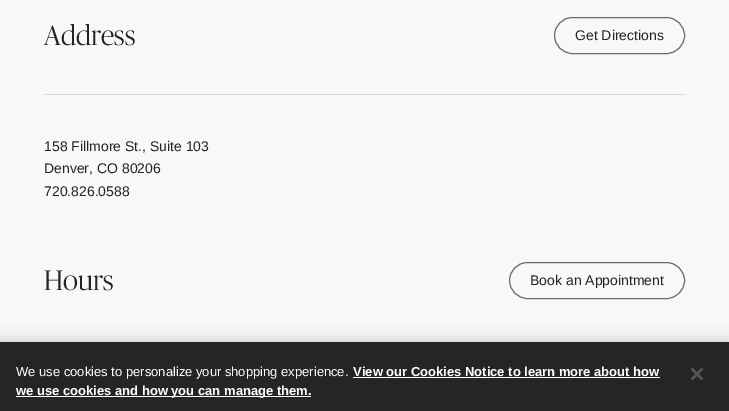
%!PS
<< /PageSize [729 411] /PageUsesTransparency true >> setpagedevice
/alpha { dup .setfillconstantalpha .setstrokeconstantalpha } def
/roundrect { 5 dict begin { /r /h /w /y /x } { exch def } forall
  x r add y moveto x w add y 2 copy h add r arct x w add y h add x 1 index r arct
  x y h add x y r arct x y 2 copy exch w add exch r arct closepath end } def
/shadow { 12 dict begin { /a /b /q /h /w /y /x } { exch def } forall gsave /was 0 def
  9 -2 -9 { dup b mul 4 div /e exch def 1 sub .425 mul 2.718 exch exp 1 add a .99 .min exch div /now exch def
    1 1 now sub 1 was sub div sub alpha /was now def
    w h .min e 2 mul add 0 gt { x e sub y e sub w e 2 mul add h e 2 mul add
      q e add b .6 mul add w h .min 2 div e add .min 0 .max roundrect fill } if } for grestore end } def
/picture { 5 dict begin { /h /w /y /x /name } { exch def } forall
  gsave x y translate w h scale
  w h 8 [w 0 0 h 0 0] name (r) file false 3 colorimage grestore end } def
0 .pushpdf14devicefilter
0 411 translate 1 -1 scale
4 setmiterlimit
0.973 setgray
0 0 729 411 rectfill
0.847 setgray
44 94 641 1 rectfill
/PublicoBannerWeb-Light [28 0 0 -28 0 0] selectfont
0.141 0.133 0.133 setrgbcolor
44 45 moveto (Address) show
0.42 setgray
554.5 17.5 130 36 18 roundrect stroke
/LiberationSans-Regular [14 0 0 -14 0 0] selectfont
0.141 0.133 0.133 setrgbcolor
575 40 moveto (Get Directions) show
44 151 moveto (158 Fillmore St., Suite 103) show
44 173 moveto (Denver, CO 80206) show
44 196 moveto (720.826.0588) show
/PublicoBannerWeb-Light [28 0 0 -28 0 0] selectfont
44 290 moveto (Hours) show
0.42 setgray
509.5 262.5 175 36 18 roundrect stroke
/LiberationSans-Regular [14 0 0 -14 0 0] selectfont
0.141 0.133 0.133 setrgbcolor
530 285 moveto (Book an Appointment) show
0 setgray
0 342 729 69 0 9 0.2 shadow
0.145 setgray
0 342 729 69 rectfill
/LiberationSans-Regular [13 0 0 -13 0 0] selectfont
1 setgray
16 376 moveto (We use cookies to personalize your shopping experience.) show
/LiberationSans-Bold [13 0 0 -13 0 0] selectfont
353 376 moveto (View our Cookies Notice to learn more about how) show
353 377 307 1 rectfill
16 396 295 1 rectfill
16 395 moveto (we use cookies and how you can manage them.) show
(img1.rgb) 691 368 12 12 picture
.poppdf14devicefilter showpage
